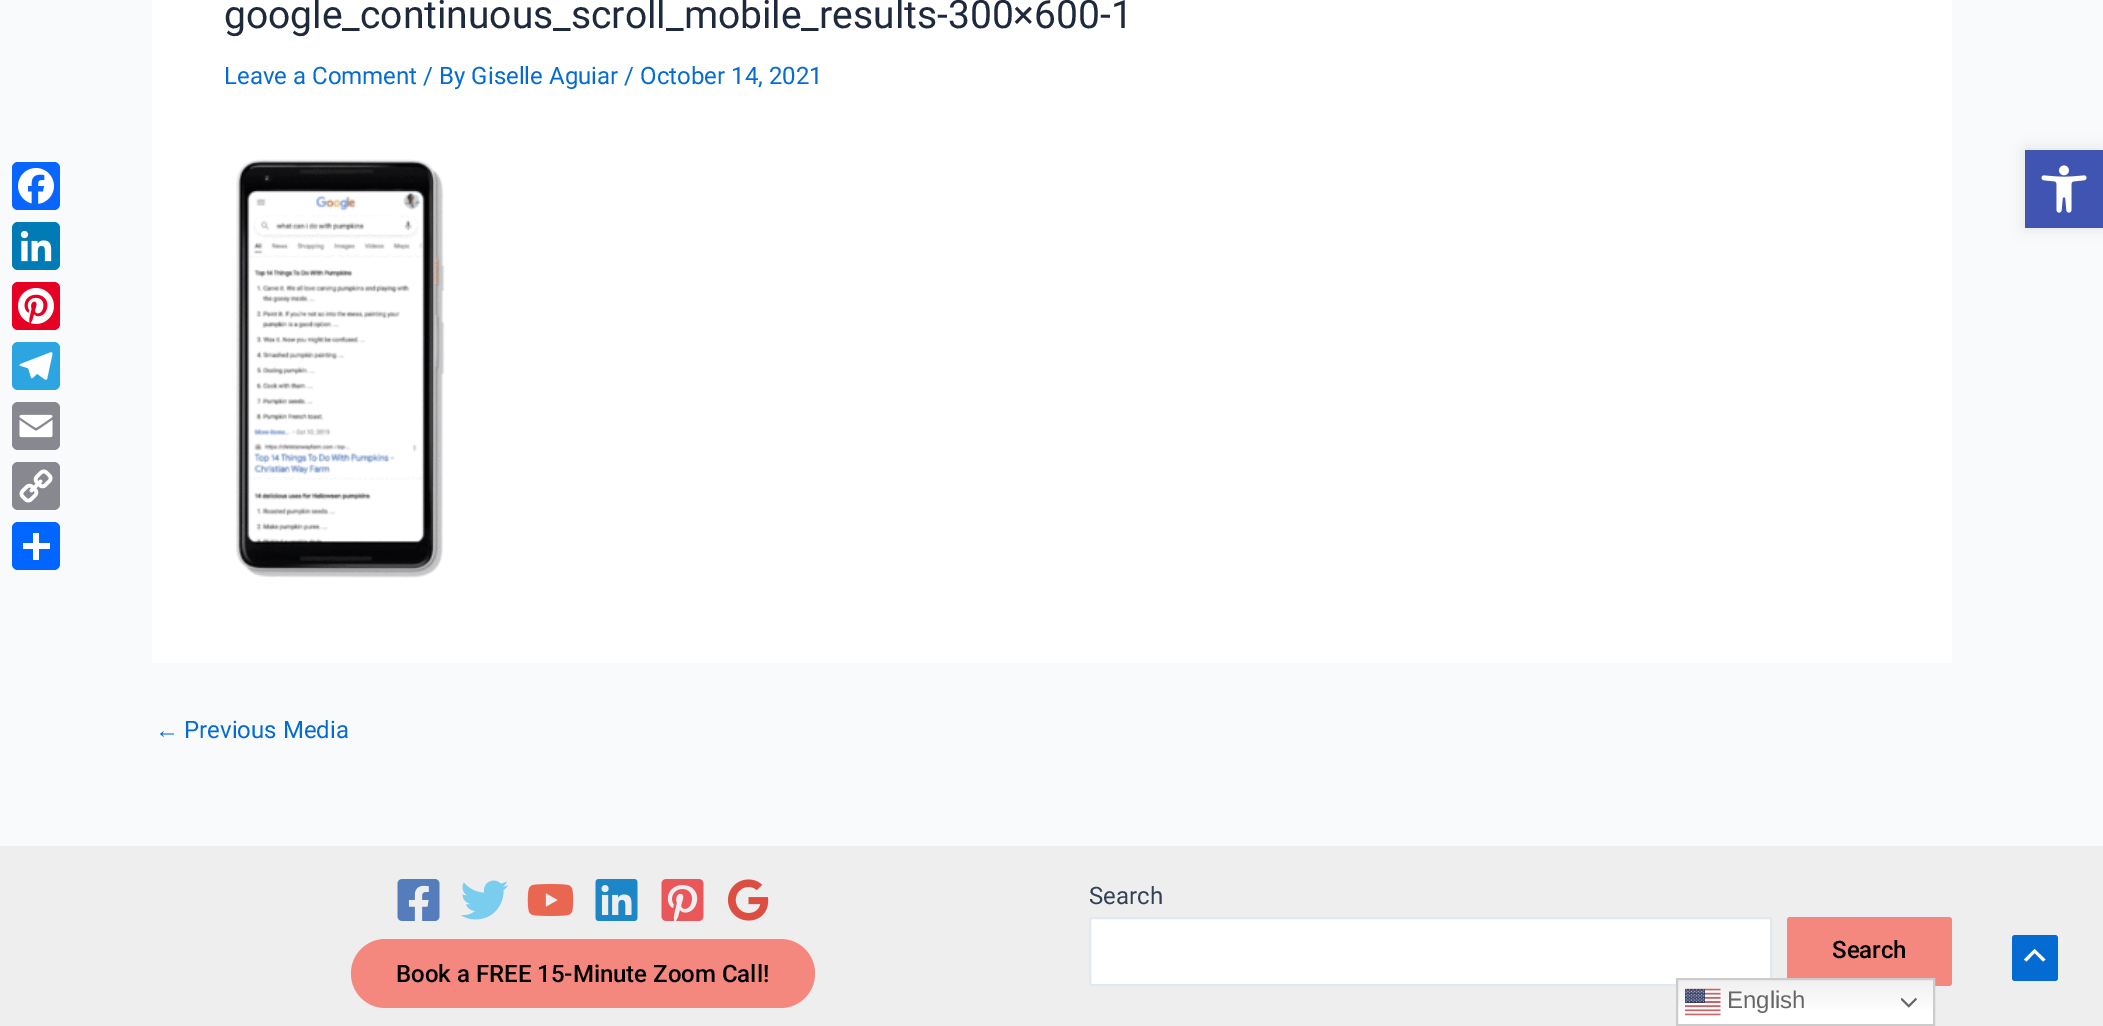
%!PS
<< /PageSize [2103 1026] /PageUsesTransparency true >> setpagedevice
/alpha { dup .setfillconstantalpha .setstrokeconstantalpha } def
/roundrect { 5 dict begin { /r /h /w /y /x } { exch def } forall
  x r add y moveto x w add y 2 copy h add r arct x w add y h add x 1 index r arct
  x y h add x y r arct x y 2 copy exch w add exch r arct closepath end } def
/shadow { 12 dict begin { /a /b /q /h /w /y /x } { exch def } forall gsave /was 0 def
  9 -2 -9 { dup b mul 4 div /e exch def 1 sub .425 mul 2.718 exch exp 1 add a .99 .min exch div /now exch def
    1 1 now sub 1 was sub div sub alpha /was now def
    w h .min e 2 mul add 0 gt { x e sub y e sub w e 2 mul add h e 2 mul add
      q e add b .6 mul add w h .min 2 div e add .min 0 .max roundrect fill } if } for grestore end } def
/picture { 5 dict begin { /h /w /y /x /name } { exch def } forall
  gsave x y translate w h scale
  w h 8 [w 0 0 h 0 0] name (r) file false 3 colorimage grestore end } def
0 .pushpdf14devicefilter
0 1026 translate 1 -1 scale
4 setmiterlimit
0.976 0.98 0.984 setrgbcolor
0 0 2103 1026 rectfill
0.031 0.4 1 setrgbcolor
12 162 48 48 6 roundrect fill
(img1.rgb) 18 168 36 36 picture
0 0.482 0.71 setrgbcolor
12 222 48 48 6 roundrect fill
(img2.rgb) 20 230 32 32 picture
0.902 0 0.137 setrgbcolor
12 282 48 48 6 roundrect fill
(img3.rgb) 18 288 36 36 picture
0.173 0.647 0.878 setrgbcolor
12 342 48 48 6 roundrect fill
(img4.rgb) 19 352 34 28 picture
0.533 0.537 0.565 setrgbcolor
12 402 48 48 6 roundrect fill
(img5.rgb) 19 414 34 24 picture
12 462 48 48 6 roundrect fill
(img6.rgb) 19 469 34 34 picture
0.004 0.4 1 setrgbcolor
12 522 48 48 6 roundrect fill
1 setgray
33 533 6 27 rectfill
23 543 27 6 rectfill
152 0 1800 663 rectfill
/Roboto-Regular [39 0 0 -39 0 0] selectfont
0.118 0.161 0.231 setrgbcolor
224 28 moveto (google_continuous_scroll_mobile_results-300×600-1) show
/Roboto-Regular [24 0 0 -24 0 0] selectfont
0.016 0.42 0.824 setrgbcolor
224 84 moveto (Leave a Comment / By Giselle Aguiar / October 14, 2021) show
(img7.rgb) 235 159 210 419 picture
/LiberationSans-Regular [24 0 0 -24 0 0] selectfont
155 738 moveto (←) show
/Roboto-Regular [24 0 0 -24 0 0] selectfont
184 738 moveto (Previous Media) show
0.933 setgray
0 846 2103 180 rectfill
0.2 0.255 0.333 setrgbcolor
1089 904 moveto (Search) show
1 setgray
1090 918 681 67 2 roundrect gsave fill grestore
0.886 0.91 0.941 setrgbcolor
2 setlinewidth
stroke
0.957 0.533 0.494 setrgbcolor
1787 917 165 69 3 roundrect fill
/Roboto-Medium [24 0 0 -24 0 0] selectfont
0 setgray
1832 958 moveto (Search) show
(img8.rgb) 397 879 43 42 picture
(img9.rgb) 461 880 48 40 picture
(img10.rgb) 527 884 47 32 picture
(img11.rgb) 595 879 43 42 picture
(img12.rgb) 661 879 43 42 picture
(img13.rgb) 727 879 42 42 picture
0.957 0.533 0.494 setrgbcolor
351 939 464 69 34.5 roundrect fill
0 setgray
396 982 moveto (Book a FREE 15-Minute Zoom Call!) show
2025 150 78 78 0 7.5 0.1 shadow
0.251 0.329 0.698 setrgbcolor
2025 150 78 78 rectfill
(img14.rgb) 2041 165 46 48 picture
0.016 0.42 0.824 setrgbcolor
2012 935 46 46 3 roundrect fill
1 setgray
newpath 2045.5 959.5 moveto 2034.5 949 lineto 2024 959.5 lineto 2026.5 961.5 lineto 2034.5 953 lineto 2043 961.5 lineto closepath fill
gsave newpath 1678 980 moveto 1933 980 lineto 1933 1024 lineto 1678 1024 lineto closepath clip newpath
<< /ShadingType 2 /ColorSpace /DeviceRGB /Coords [1805 978 1805 1026] /Extend [true true] /Function << /FunctionType 3 /Domain [0 1] /Functions [<< /FunctionType 2 /Domain [0 1] /C0 [0.937 0.937 0.937] /C1 [1 1 1] /N 1 >> << /FunctionType 2 /Domain [0 1] /C0 [1 1 1] /C1 [1 1 1] /N 1 >>] /Bounds [0.7] /Encode [0 1 0 1] >> >> shfill grestore
0.8 setgray
1677 979 257 46 rectstroke
(img15.rgb) 1685 988 36 28 picture
/LiberationSans-Regular [24 0 0 -24 0 0] selectfont
0.4 setgray
1727 1008 moveto (English) show
(img16.rgb) 1901 998 16 10 picture
.poppdf14devicefilter showpage
